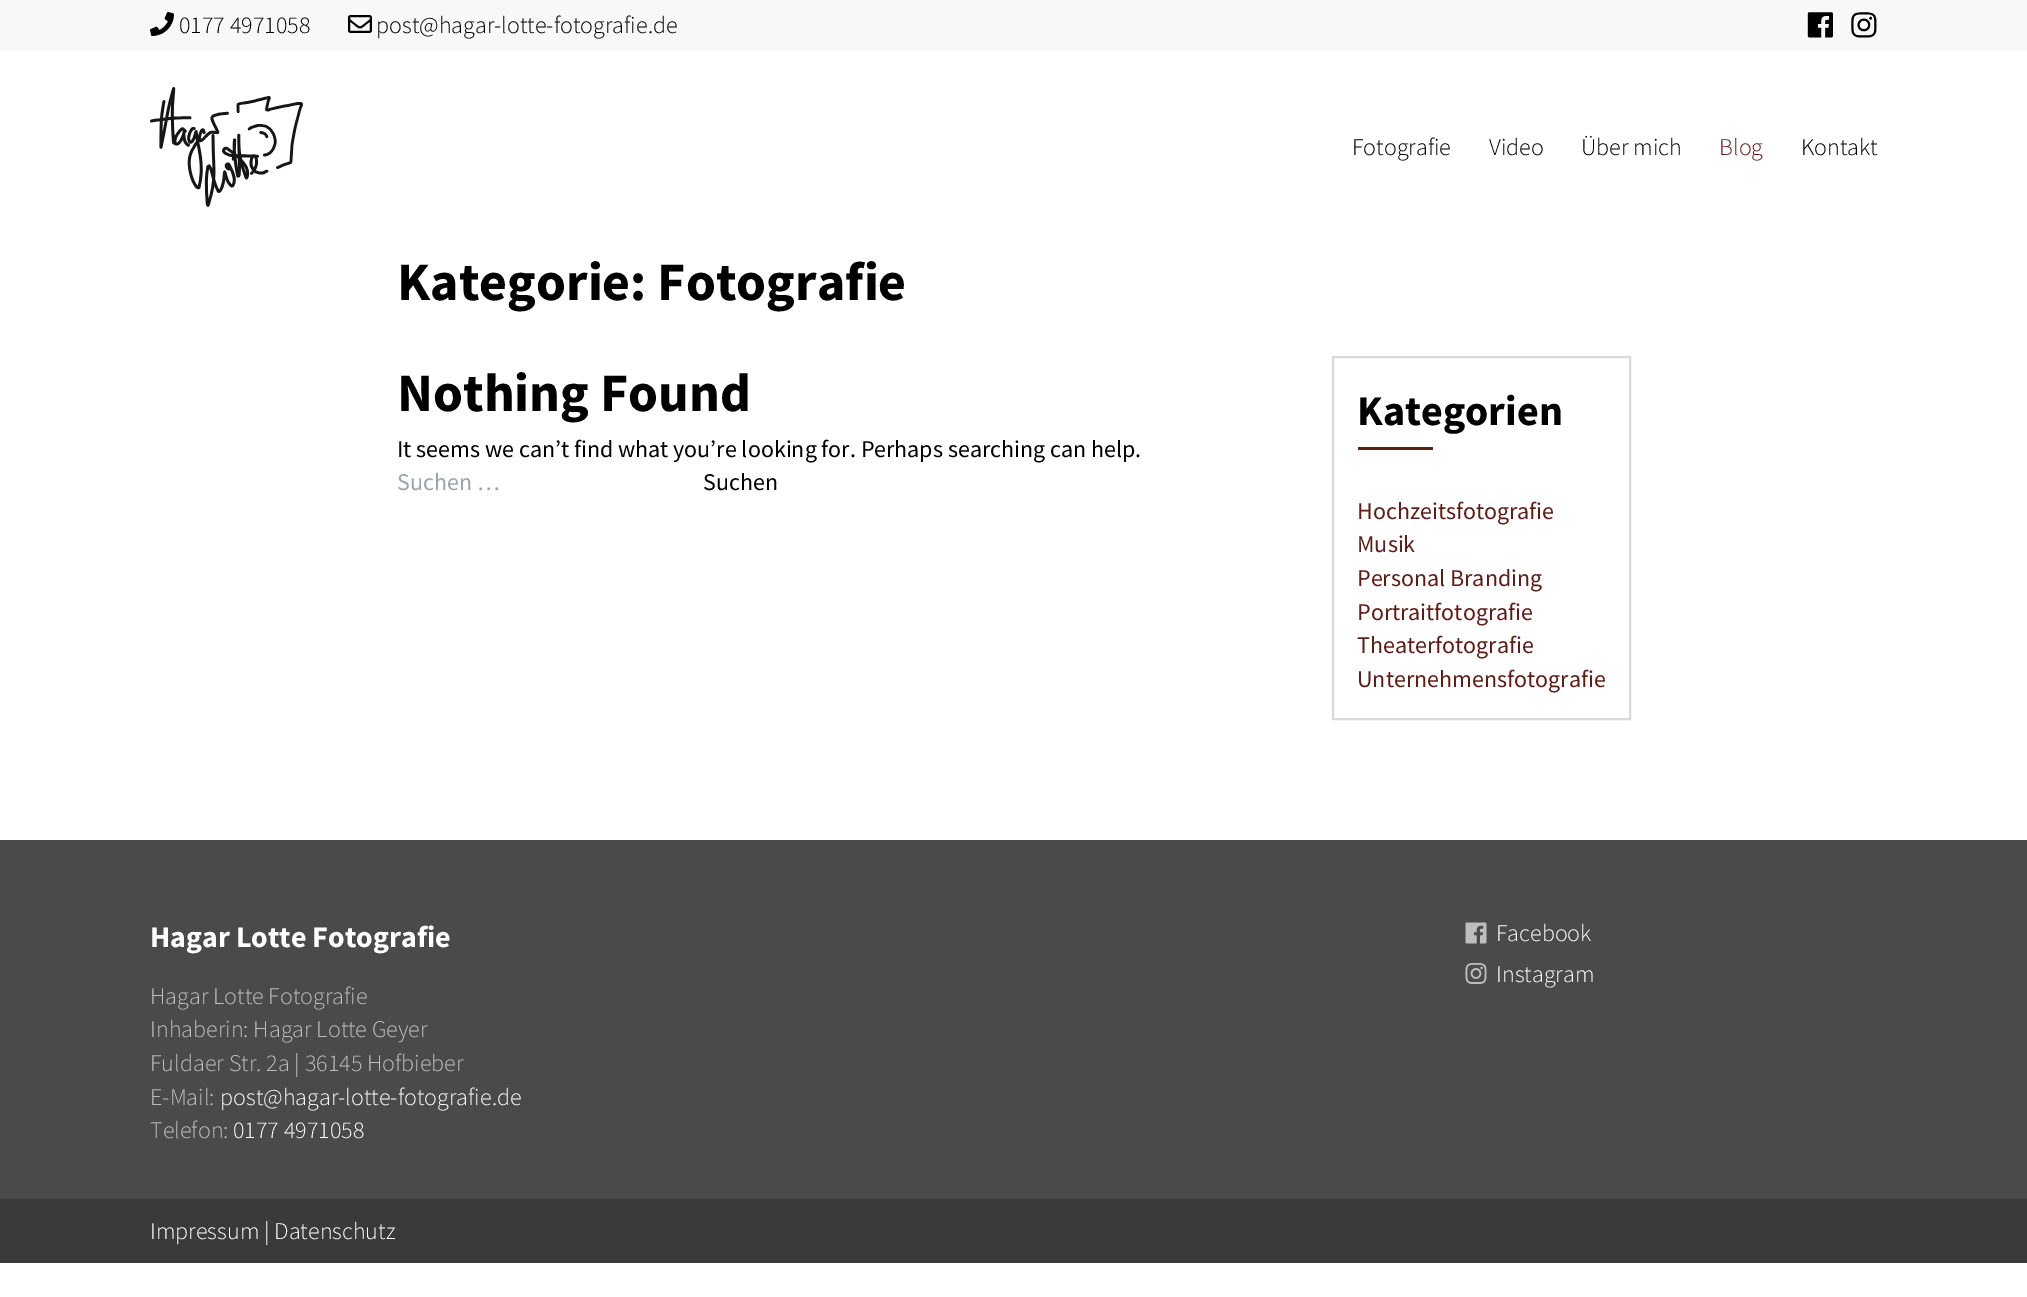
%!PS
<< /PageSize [2027 1297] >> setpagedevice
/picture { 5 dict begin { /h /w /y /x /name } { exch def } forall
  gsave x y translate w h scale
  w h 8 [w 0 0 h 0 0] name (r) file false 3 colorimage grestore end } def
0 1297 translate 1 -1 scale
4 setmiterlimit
1 setgray
0 0 2027 1297 rectfill
0.973 setgray
0 0 2027 50 rectfill
(img1.rgb) 150 12 24 24 picture
/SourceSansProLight-Light [24 0 0 -24 0 0] selectfont
0 setgray
179 33 moveto (0177 4971058) show
(img2.rgb) 348 15 24 18 picture
376 33 moveto (post@hagar-lotte-fotografie.de) show
(img3.rgb) 1807 12 26 26 picture
(img4.rgb) 1851 12 26 26 picture
(img5.rgb) 150 87 153 120 picture
1352 155 moveto (Fotografie) show
1489 155 moveto (Video) show
1581 155 moveto (Über mich) show
0.369 0.118 0.094 setrgbcolor
1719 155 moveto (Blog) show
0 setgray
1801 155 moveto (Kontakt) show
/SourceSansPro-Bold [54 0 0 -54 0 0] selectfont
397 300 moveto (Kategorie: Fotografie) show
397 411 moveto (Nothing Found) show
/SourceSansPro-Regular [24 0 0 -24 0 0] selectfont
397 457 moveto (It seems we can’t find what you’re looking for. Perhaps searching can help.) show
0.612 0.639 0.686 setrgbcolor
397 490 moveto (Suchen …) show
0 setgray
703 490 moveto (Suchen) show
0.855 setgray
2 setlinewidth
1333 357 297 362 rectstroke
/SourceSansPro-Bold [42 0 0 -42 0 0] selectfont
0 setgray
1357 425 moveto (Kategorien) show
0.369 0.118 0.094 setrgbcolor
1358 447 75 3 rectfill
/SourceSansPro-Regular [24 0 0 -24 0 0] selectfont
1357 519 moveto (Hochzeitsfotografie) show
1357 552 moveto (Musik) show
1357 586 moveto (Personal Branding) show
1357 620 moveto (Portraitfotografie) show
1357 653 moveto (Theaterfotografie) show
1357 687 moveto (Unternehmensfotografie) show
0.29 setgray
0 840 2027 359 rectfill
/SourceSansPro-Bold [30 0 0 -30 0 0] selectfont
1 setgray
150 947 moveto (Hagar Lotte Fotografie) show
/SourceSansProLight-Light [24 0 0 -24 0 0] selectfont
0.745 setgray
150 1004 moveto (Hagar Lotte Fotografie) show
150 1037 moveto (Inhaberin: Hagar Lotte Geyer) show
150 1071 moveto (Fuldaer Str. 2a | 36145 Hofbieber) show
150 1105 moveto (E-Mail:) show
1 setgray
220 1105 moveto (post@hagar-lotte-fotografie.de) show
0.745 setgray
150 1138 moveto (Telefon:) show
1 setgray
233 1138 moveto (0177 4971058) show
(img6.rgb) 1465 922 22 22 picture
1496 941 moveto (Facebook) show
(img7.rgb) 1465 963 22 21 picture
1496 982 moveto (Instagram) show
0.231 0.227 0.231 setrgbcolor
0 1199 2027 64 rectfill
1 setgray
150 1239 moveto (Impressum) show
264 1239 moveto (| Datenschutz) show
showpage
